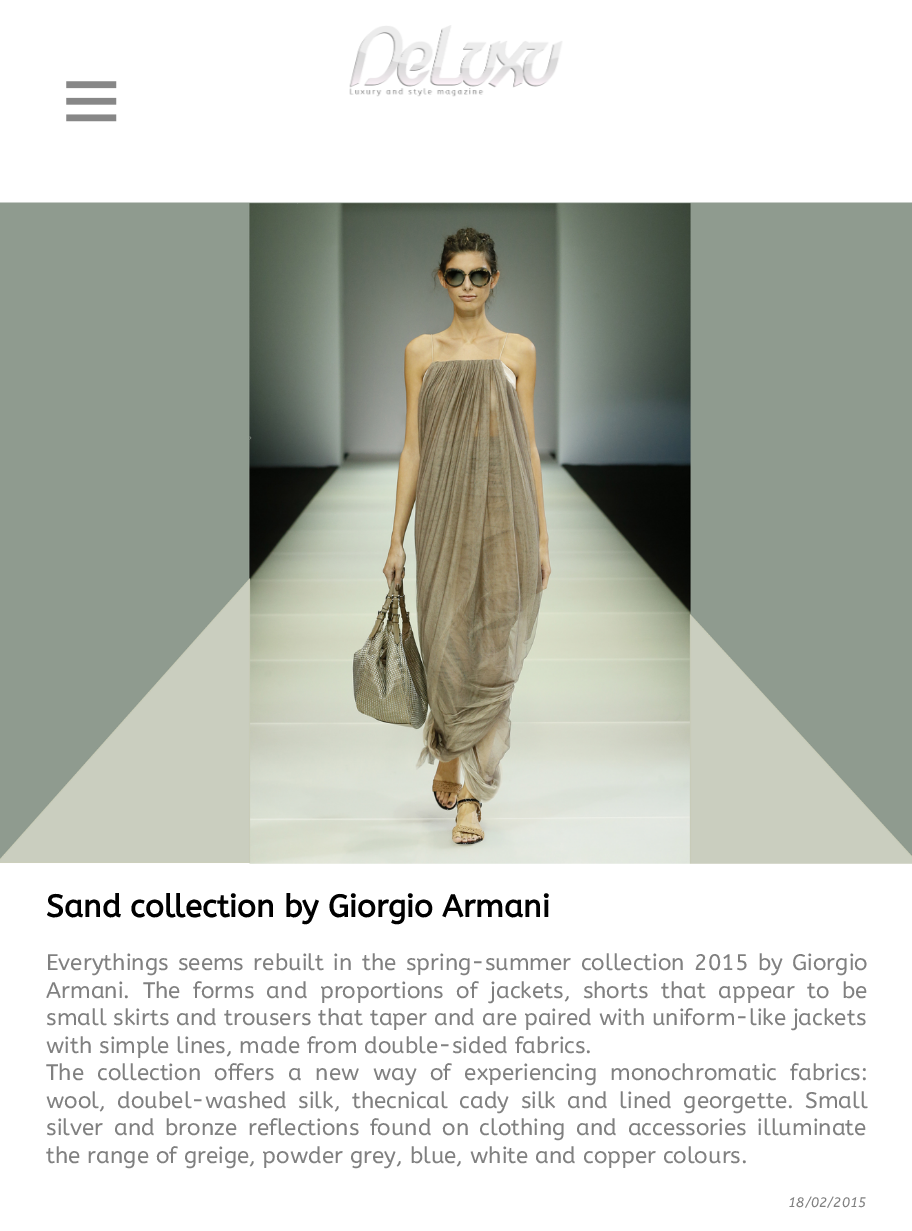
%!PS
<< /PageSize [912 1231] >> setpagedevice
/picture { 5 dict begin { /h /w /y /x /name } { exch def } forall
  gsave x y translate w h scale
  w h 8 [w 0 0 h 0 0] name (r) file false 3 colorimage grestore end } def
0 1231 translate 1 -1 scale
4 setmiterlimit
1 setgray
0 0 912 1231 rectfill
(img1.rgb) 349 25 214 72 picture
(img2.rgb) 66 81 51 41 picture
(img3.rgb) 0 202 912 662 picture
/ABeeZee-Bold [31.25 0 0 -31.25 0 0] selectfont
0 setgray
46 917 moveto (Sand collection by Giorgio Armani) show
/ABeeZee-Regular [22.5 0 0 -22.5 0 0] selectfont
0.502 setgray
46 970 moveto 2.75 0 32 (Everythings seems rebuilt in the spring-summer collection 2015 by Giorgio) widthshow
46 998 moveto 5.6 0 32 (Armani. The forms and proportions of jackets, shorts that appear to be) widthshow
46 1025 moveto (small skirts and trousers that taper and are paired with uniform-like jackets) show
46 1053 moveto (with simple lines, made from double-sided fabrics.) show
46 1080 moveto 6.5 0 32 (The collection offers a new way of experiencing monochromatic fabrics:) widthshow
46 1108 moveto 4.5 0 32 (wool, doubel-washed silk, thecnical cady silk and lined georgette. Small) widthshow
46 1135 moveto 3.75 0 32 (silver and bronze reflections found on clothing and accessories illuminate) widthshow
46 1163 moveto (the range of greige, powder grey, blue, white and copper colours.) show
/ABeeZee-Italic [13.75 0 0 -13.75 0 0] selectfont
788 1207 moveto (18/02/2015) show
showpage
